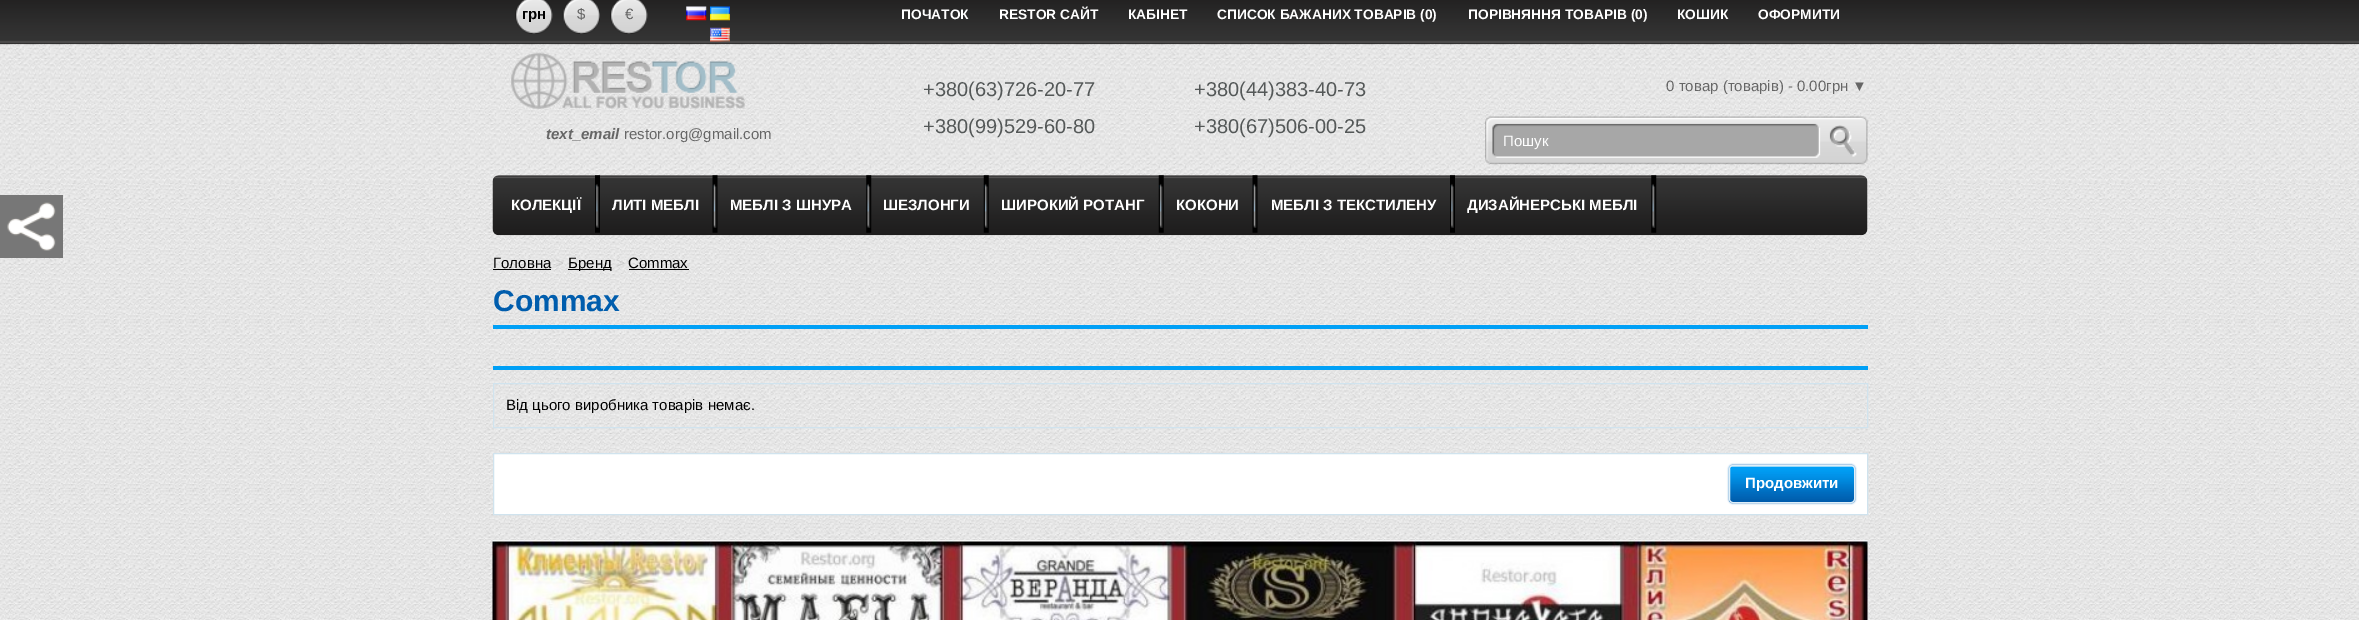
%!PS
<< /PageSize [2359 620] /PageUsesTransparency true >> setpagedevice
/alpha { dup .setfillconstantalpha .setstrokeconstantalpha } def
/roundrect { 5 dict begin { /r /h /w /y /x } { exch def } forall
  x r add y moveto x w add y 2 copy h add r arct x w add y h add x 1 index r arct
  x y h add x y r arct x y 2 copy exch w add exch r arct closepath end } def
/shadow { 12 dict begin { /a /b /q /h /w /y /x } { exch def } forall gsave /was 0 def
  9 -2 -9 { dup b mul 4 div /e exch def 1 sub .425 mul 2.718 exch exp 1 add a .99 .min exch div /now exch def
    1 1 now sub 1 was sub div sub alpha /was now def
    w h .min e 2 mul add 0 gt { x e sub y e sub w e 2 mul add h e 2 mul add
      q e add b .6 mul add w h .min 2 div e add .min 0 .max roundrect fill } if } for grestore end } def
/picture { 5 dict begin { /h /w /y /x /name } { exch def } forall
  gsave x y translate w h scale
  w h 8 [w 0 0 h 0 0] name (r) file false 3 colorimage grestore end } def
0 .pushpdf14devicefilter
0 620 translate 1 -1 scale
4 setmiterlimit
1 setgray
0 0 2359 620 rectfill
(img1.rgb) 0 182 2359 438 picture
(img2.rgb) 0 0 2359 183 picture
0.467 setgray
0 195 63 63 rectfill
(img3.rgb) 7 202 49 49 picture
(img4.rgb) 515 0 38 34 picture
/LiberationSans-Bold [15 0 0 -15 0 0] selectfont
0 setgray
522 19 moveto (грн) show
(img5.rgb) 562 0 38 34 picture
/LiberationSans-Regular [15 0 0 -15 0 0] selectfont
0.4 setgray
577 19 moveto ($) show
(img4.rgb) 610 0 38 34 picture
625 19 moveto (€) show
(img6.rgb) 686 6 21 15 picture
(img7.rgb) 710 6 20 15 picture
(img8.rgb) 710 27 20 15 picture
/LiberationSans-Bold [13.75 0 0 -13.75 0 0] selectfont
1 setgray
901 19 moveto (ПОЧАТОК) show
999 19 moveto (RESTOR САЙТ) show
1128 19 moveto (КАБІНЕТ) show
1217 19 moveto (СПИСОК БАЖАНИХ ТОВАРІВ \(0\)) show
1468 19 moveto (ПОРІВНЯННЯ ТОВАРІВ \(0\)) show
1677 19 moveto (КОШИК) show
1758 19 moveto (ОФОРМИТИ) show
(img9.rgb) 511 52 234 57 picture
/LiberationSans-Regular [20 0 0 -20 0 0] selectfont
0.329 0.345 0.345 setrgbcolor
923 96 moveto (+380\(63\)726-20-77) show
1194 96 moveto (+380\(44\)383-40-73) show
923 133 moveto (+380\(99\)529-60-80) show
1194 133 moveto (+380\(67\)506-00-25) show
/LiberationSans-Regular [15 0 0 -15 0 0] selectfont
0.4 setgray
1666 91 moveto (0 товар \(товарів\) - 0.00грн ▼) show
/LiberationSans-BoldItalic [15 0 0 -15 0 0] selectfont
546 139 moveto (text_email) show
/LiberationSans-Regular [15 0 0 -15 0 0] selectfont
624 139 moveto (restor.org@gmail.com) show
(img10.rgb) 1485 116 383 49 picture
1 setgray
1503 146 moveto (Пошук) show
(img11.rgb) 492 175 1376 61 picture
(img12.rgb) 595 175 5 58 picture
/LiberationSans-Bold [15 0 0 -15 0 0] selectfont
511 210 moveto (КОЛЕКЦІЇ) show
(img13.rgb) 712 175 6 58 picture
612 210 moveto (ЛИТІ МЕБЛІ) show
(img14.rgb) 866 175 6 58 picture
730 210 moveto (МЕБЛІ З ШНУРА) show
(img15.rgb) 983 175 6 58 picture
883 210 moveto (ШЕЗЛОНГИ) show
(img16.rgb) 1158 175 6 58 picture
1001 210 moveto (ШИРОКИЙ РОТАНГ) show
(img17.rgb) 1252 175 6 58 picture
1176 210 moveto (КОКОНИ) show
(img18.rgb) 1450 175 5 58 picture
1271 210 moveto (МЕБЛІ З ТЕКСТИЛЕНУ) show
(img19.rgb) 1651 175 6 58 picture
1467 210 moveto (ДИЗАЙНЕРСЬКІ МЕБЛІ) show
/LiberationSans-Regular [15 0 0 -15 0 0] selectfont
0 setgray
493 268 moveto (Головна) show
493 269 58 1 rectfill
0.8 setgray
555 268 moveto (>) show
0 setgray
568 269 43 1 rectfill
568 268 moveto (Бренд) show
0.8 setgray
616 268 moveto (>) show
0 setgray
628 268 moveto (Commax) show
629 269 60 1 rectfill
/LiberationSans-Bold [30 0 0 -30 0 0] selectfont
0 0.365 0.678 setrgbcolor
493 311 moveto (Commax) show
0 0.627 0.965 setrgbcolor
493 325 1375 4 rectfill
493 366 1375 4 rectfill
0.816 0.89 0.933 setrgbcolor
493.5 383.5 1374 44 rectstroke
/LiberationSans-Regular [15 0 0 -15 0 0] selectfont
0 setgray
506 410 moveto (Від цього виробника товарів немає.) show
1 setgray
newpath 493.5 453.5 moveto 1867.5 453.5 lineto 1867.5 514.5 lineto 493.5 514.5 lineto closepath gsave fill grestore
0.816 0.89 0.933 setrgbcolor
stroke
0 0.384 0.702 setrgbcolor
1729 465 126 38 4 1 1 shadow
(img20.rgb) 1728 466 127 37 picture
0.878 0.937 0.973 setrgbcolor
1729.5 465.5 125 37 3.5 roundrect stroke
/LiberationSans-Bold [15 0 0 -15 0 0] selectfont
1 setgray
1745 488 moveto (Продовжити) show
(img21.rgb) 492 540 1376 80 picture
.poppdf14devicefilter showpage
